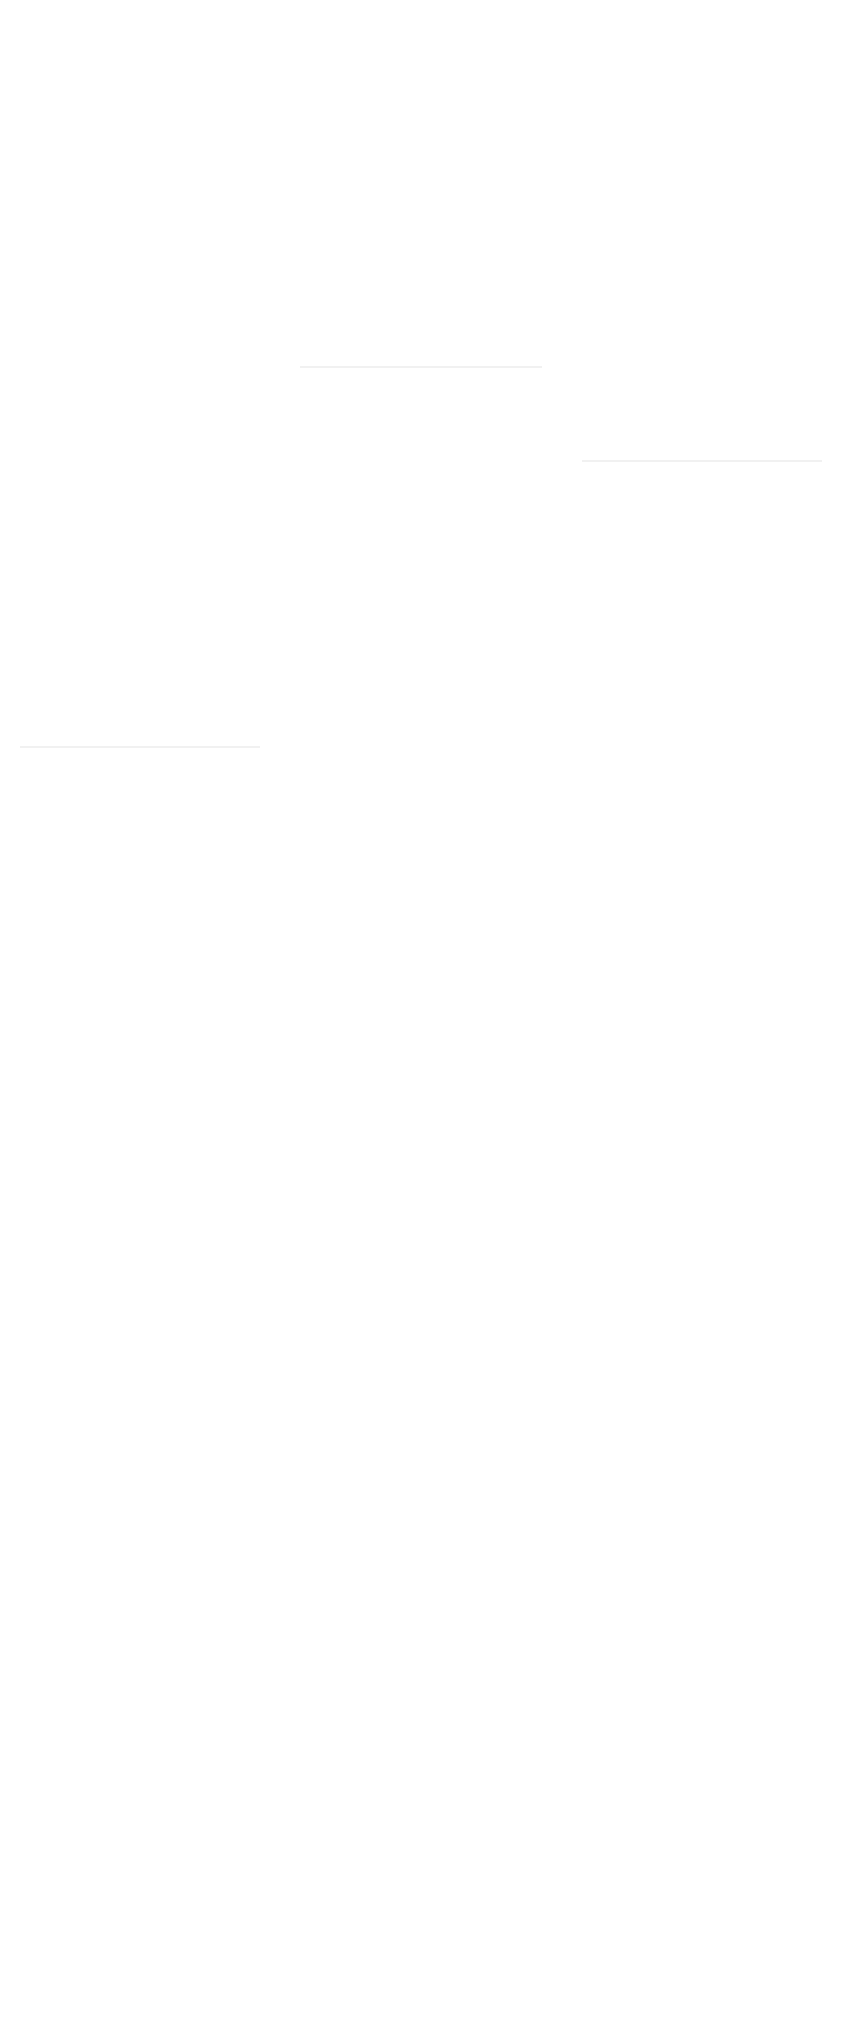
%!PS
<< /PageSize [841 2024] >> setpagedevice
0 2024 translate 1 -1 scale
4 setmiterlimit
1 setgray
0 0 841 2024 rectfill
0.945 setgray
300 366 242 2 rectfill
582 460 240 2 rectfill
20 746 240 2 rectfill
showpage
